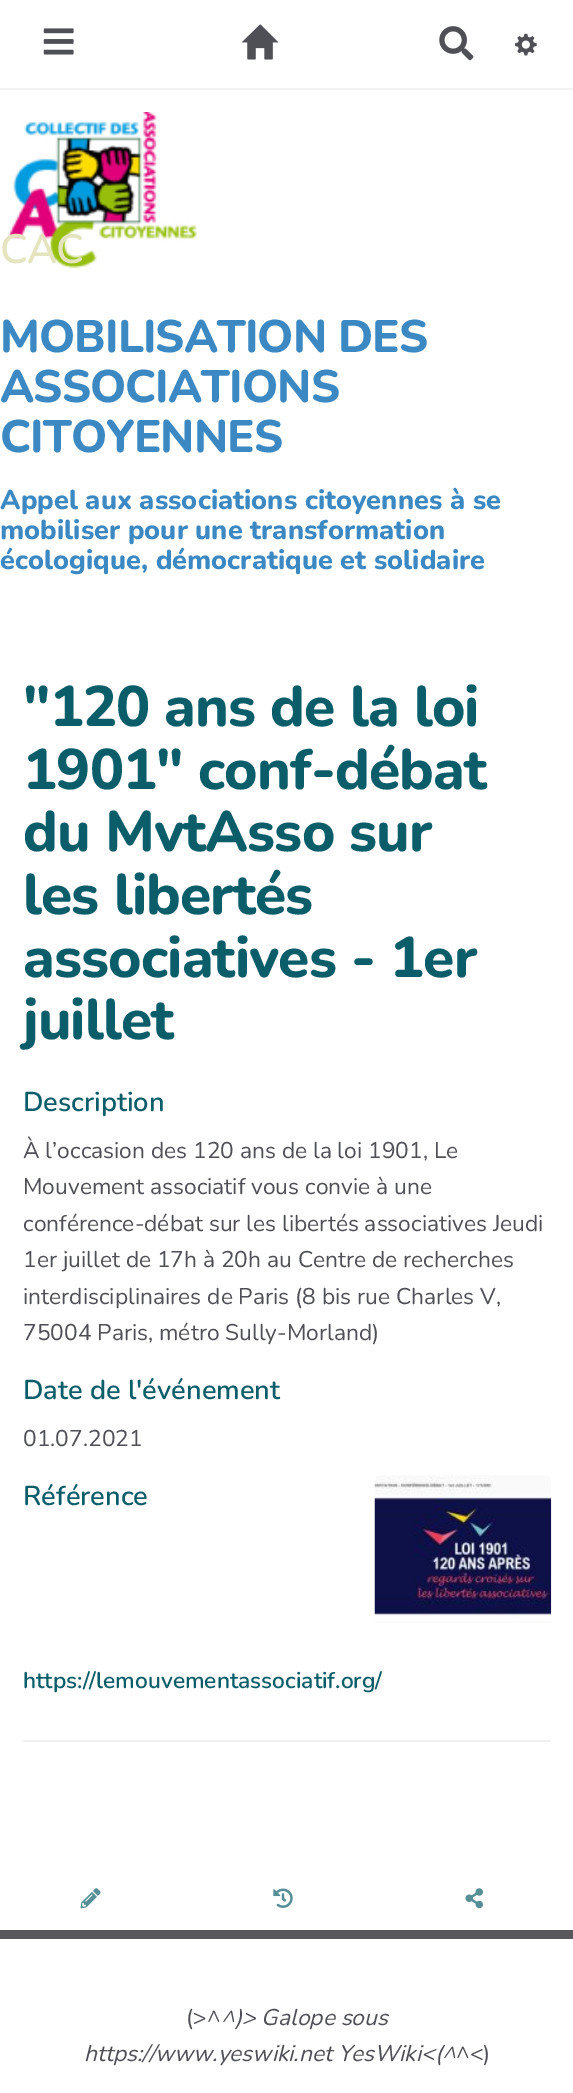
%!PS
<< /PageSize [573 2093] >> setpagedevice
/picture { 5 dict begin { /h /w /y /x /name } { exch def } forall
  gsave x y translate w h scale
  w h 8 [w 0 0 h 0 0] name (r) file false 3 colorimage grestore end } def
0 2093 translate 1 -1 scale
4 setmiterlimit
1 setgray
0 0 573 2093 rectfill
0.949 setgray
0 88 573 2 rectfill
(img1.rgb) 43 28 31 27 picture
(img2.rgb) 242 24 37 36 picture
(img3.rgb) 439 26 35 35 picture
(img4.rgb) 515 33 22 23 picture
(img5.rgb) 8 112 189 157 picture
/Nunito-SemiBold [41 0 0 -41 0 0] selectfont
0.894 0.894 0.749 setrgbcolor
0 263 moveto -0.9 0 (CAC) ashow
/Nunito-ExtraBold [45.5 0 0 -45.5 0 0] selectfont
0.231 0.533 0.765 setrgbcolor
0 352 moveto -0.9 0 (MOBILISATION DES) ashow
0 402 moveto -0.9 0 (ASSOCIATIONS) ashow
0 452 moveto -0.9 0 (CITOYENNES) ashow
/Nunito-ExtraBold [27.25 0 0 -27.25 0 0] selectfont
0 509 moveto (Appel aux associations citoyennes à se) show
0 539 moveto (mobiliser pour une transformation) show
0 569 moveto (écologique, démocratique et solidaire) show
/Nunito-ExtraBold [57 0 0 -57 0 0] selectfont
0.047 0.365 0.416 setrgbcolor
23 726 moveto -0.9 0 ("120 ans de la loi) ashow
23 789 moveto -0.9 0 (1901" conf-débat) ashow
23 851 moveto -0.9 0 (du MvtAsso sur) ashow
23 914 moveto -0.9 0 (les libertés) ashow
23 977 moveto -0.9 0 (associatives - 1er) ashow
23 1039 moveto -0.9 0 (juillet) ashow
/Nunito-SemiBold [27.25 0 0 -27.25 0 0] selectfont
23 1111 moveto (Description) show
/Nunito-Regular [22.75 0 0 -22.75 0 0] selectfont
0.306 0.314 0.337 setrgbcolor
23 1158 moveto (À l’occasion des 120 ans de la loi 1901, Le) show
23 1194 moveto (Mouvement associatif vous convie à une) show
23 1231 moveto (conférence-débat sur les libertés associatives Jeudi) show
23 1267 moveto (1er juillet de 17h à 20h au Centre de recherches) show
23 1304 moveto (interdisciplinaires de Paris \(8 bis rue Charles V,) show
23 1340 moveto (75004 Paris, métro Sully-Morland\)) show
/Nunito-SemiBold [27.25 0 0 -27.25 0 0] selectfont
0.047 0.365 0.416 setrgbcolor
23 1399 moveto (Date de l'événement) show
/Nunito-Regular [22.75 0 0 -22.75 0 0] selectfont
0.306 0.314 0.337 setrgbcolor
23 1446 moveto (01.07.2021) show
/Nunito-SemiBold [27.25 0 0 -27.25 0 0] selectfont
0.047 0.365 0.416 setrgbcolor
23 1505 moveto (Référence) show
/Nunito-SemiBold [22.75 0 0 -22.75 0 0] selectfont
23 1688 moveto (https://lemouvementassociatif.org/) show
(img6.rgb) 374 1475 178 148 picture
0.945 setgray
23 1740 528 2 rectfill
(img7.rgb) 80 1888 21 21 picture
(img8.rgb) 273 1888 20 20 picture
(img9.rgb) 465 1888 18 21 picture
0.341 0.341 0.361 setrgbcolor
0 1930 573 9 rectfill
/Nunito-Regular [22.75 0 0 -22.75 0 0] selectfont
0.306 0.314 0.337 setrgbcolor
186 2025 moveto (\(>^) show
/Nunito-Italic [22.75 0 0 -22.75 0 0] selectfont
221 2025 moveto (^\)> Galope sous) show
84 2061 moveto (https://www.yeswiki.net YesWiki<\(^) show
/Nunito-Regular [22.75 0 0 -22.75 0 0] selectfont
456 2061 moveto (^<\)) show
showpage
